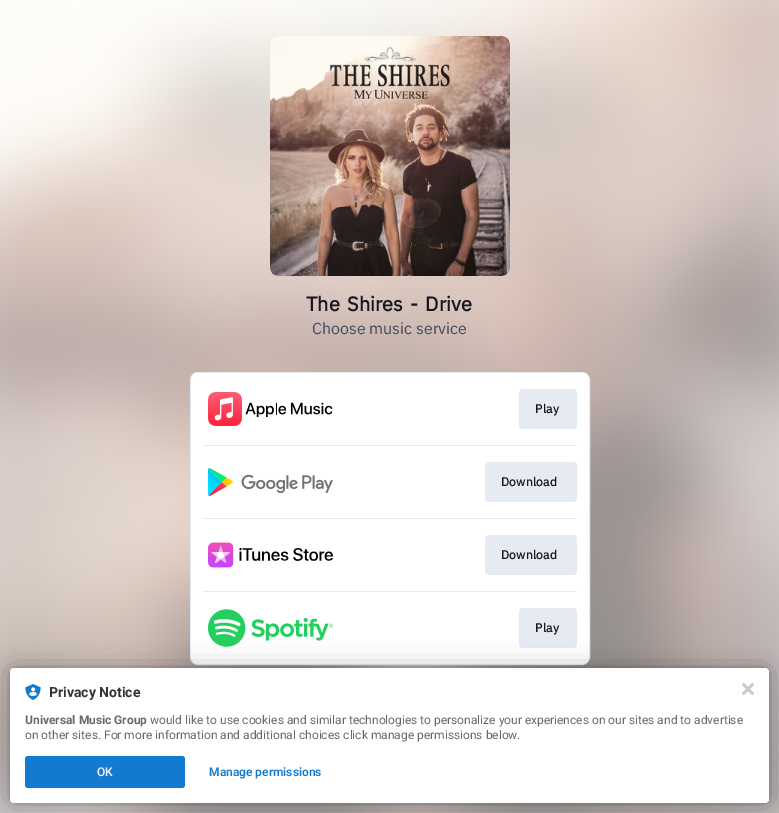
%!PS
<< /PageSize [779 813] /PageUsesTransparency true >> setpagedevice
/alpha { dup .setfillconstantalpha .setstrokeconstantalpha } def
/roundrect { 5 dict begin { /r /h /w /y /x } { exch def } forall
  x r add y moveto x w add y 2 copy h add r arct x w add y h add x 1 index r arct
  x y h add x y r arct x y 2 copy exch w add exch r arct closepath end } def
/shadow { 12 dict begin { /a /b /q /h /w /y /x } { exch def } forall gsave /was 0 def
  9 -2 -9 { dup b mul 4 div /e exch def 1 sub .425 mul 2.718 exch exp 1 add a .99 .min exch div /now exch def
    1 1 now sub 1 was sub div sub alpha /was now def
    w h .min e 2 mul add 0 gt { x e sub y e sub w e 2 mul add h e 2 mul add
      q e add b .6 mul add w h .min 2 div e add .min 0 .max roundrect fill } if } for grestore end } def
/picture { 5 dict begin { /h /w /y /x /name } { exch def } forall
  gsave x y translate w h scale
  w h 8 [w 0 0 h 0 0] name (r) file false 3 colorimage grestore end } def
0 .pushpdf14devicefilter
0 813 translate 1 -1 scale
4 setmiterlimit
1 setgray
0 0 779 813 rectfill
(img1.rgb) 0 0 779 813 picture
(img2.rgb) 270 36 240 240 picture
/IBMPlexSans-Bold [20 0 0 -20 0 0] selectfont
0.094 0.09 0.129 setrgbcolor
306 311 moveto 2.5 0 32 (The Shires - Drive) widthshow
/IBMPlexSans-Regular [16 0 0 -16 0 0] selectfont
0.271 0.294 0.373 setrgbcolor
312 334 moveto (Choose music service) show
0.902 0.918 0.949 setrgbcolor
190.5 372.5 399 292 7.5 roundrect stroke
1 setgray
191 373 398 291 7 roundrect fill
(img3.rgb) 208 392 125 34 picture
0.902 0.918 0.949 setrgbcolor
519 389 58 40 4 roundrect fill
/IBMPlexSans-Bold [12 0 0 -12 0 0] selectfont
0.094 0.09 0.129 setrgbcolor
535 413 moveto 0.25 0 (Play) ashow
0.902 0.918 0.949 setrgbcolor
203 445 374 1 rectfill
(img4.rgb) 208 468 125 28 picture
485 462 92 40 4 roundrect fill
0.094 0.09 0.129 setrgbcolor
501 486 moveto 0.25 0 (Download) ashow
0.902 0.918 0.949 setrgbcolor
203 518 374 1 rectfill
(img5.rgb) 208 542 125 26 picture
485 535 92 40 4 roundrect fill
0.094 0.09 0.129 setrgbcolor
501 559 moveto 0.25 0 (Download) ashow
0.902 0.918 0.949 setrgbcolor
203 591 374 1 rectfill
(img6.rgb) 208 609 125 38 picture
519 608 58 40 4 roundrect fill
0.094 0.09 0.129 setrgbcolor
535 632 moveto 0.25 0 (Play) ashow
0 setgray
10 668 759 135 4 2 0.12 shadow
10 668 759 135 4 12 0.3 shadow
1 setgray
10 668 759 135 4 roundrect fill
(img7.rgb) 25 684 16 16 picture
/Roboto-Bold [14 0 0 -14 0 0] selectfont
0.196 setgray
49 697 moveto (Privacy Notice) show
/Roboto-Bold [12 0 0 -12 0 0] selectfont
0.408 setgray
25 724 moveto (Universal Music Group) show
/Roboto-Regular [12 0 0 -12 0 0] selectfont
150 724 moveto (would like to use cookies and similar technologies to personalize your experiences on our sites and to advertise) show
25 739 moveto (on other sites. For more information and additional choices click manage permissions below.) show
0.075 0.482 0.812 setrgbcolor
25 756 160 32 3 roundrect fill
/Roboto-Medium [12 0 0 -12 0 0] selectfont
1 setgray
97 776 moveto (OK) show
/Roboto-SemiBold [12 0 0 -12 0 0] selectfont
0.075 0.482 0.812 setrgbcolor
209 776 moveto (Manage permissions) show
(img8.rgb) 742 683 12 12 picture
.poppdf14devicefilter showpage
